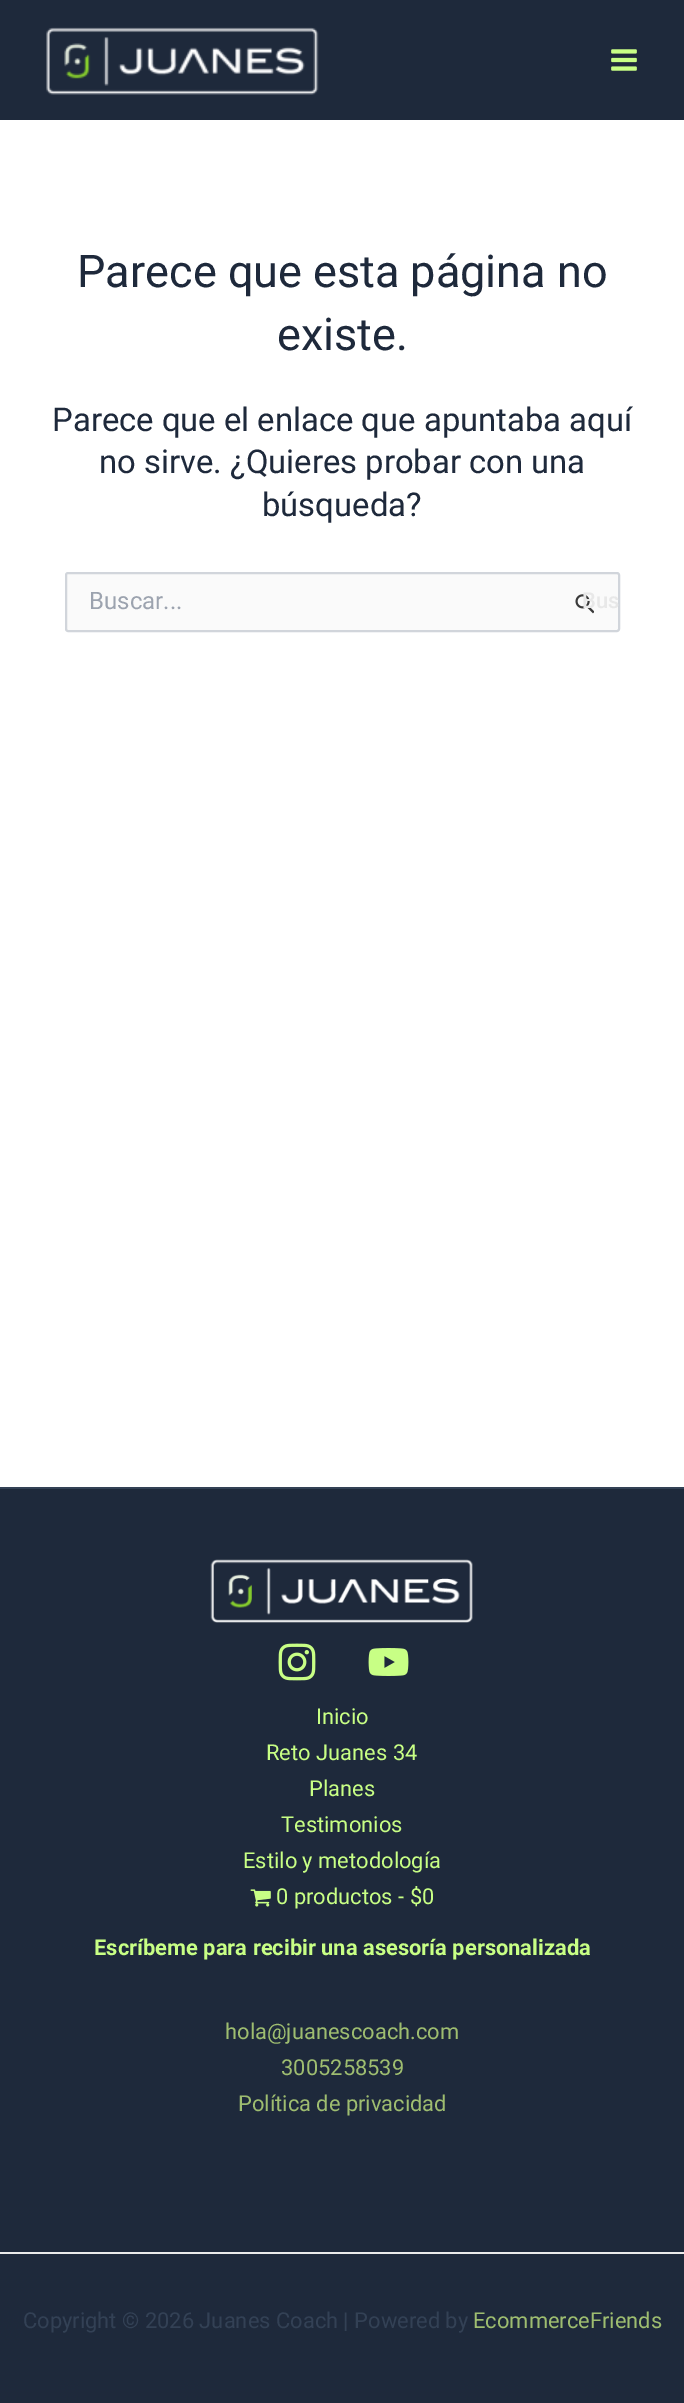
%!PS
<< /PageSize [684 2403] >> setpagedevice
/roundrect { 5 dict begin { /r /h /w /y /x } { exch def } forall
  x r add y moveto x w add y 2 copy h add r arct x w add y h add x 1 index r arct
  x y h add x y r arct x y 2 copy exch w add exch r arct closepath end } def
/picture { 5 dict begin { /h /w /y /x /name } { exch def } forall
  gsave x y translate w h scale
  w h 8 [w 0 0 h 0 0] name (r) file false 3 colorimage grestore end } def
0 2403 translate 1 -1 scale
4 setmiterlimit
1 setgray
0 0 684 2403 rectfill
0.118 0.161 0.231 setrgbcolor
0 0 684 120 rectfill
(img1.rgb) 46 27 273 68 picture
(img2.rgb) 611 49 26 22 picture
/Roboto-Regular [45 0 0 -45 0 0] selectfont
77 287 moveto (Parece que esta página no) show
277 350 moveto (existe.) show
/Roboto-Regular [32.8 0 0 -32.8 0 0] selectfont
52 431 moveto (Parece que el enlace que apuntaba aquí) show
99 473 moveto (no sirve. ¿Quieres probar con una) show
262 516 moveto (búsqueda?) show
0.98 setgray
66 573 553 58 2 roundrect gsave fill grestore
0.82 0.835 0.859 setrgbcolor
2 setlinewidth
stroke
/Roboto-Regular [24 0 0 -24 0 0] selectfont
0.612 0.639 0.686 setrgbcolor
89 609 moveto (Buscar...) show
(img3.rgb) 575 594 19 20 picture
/Roboto-Medium [21.9 0 0 -21.9 0 0] selectfont
0.91 setgray
582 608 moveto (Bus) show
0.118 0.161 0.231 setrgbcolor
0 1489 684 763 rectfill
0.2 0.255 0.333 setrgbcolor
0 1487 684 2 rectfill
(img4.rgb) 210 1559 263 64 picture
(img5.rgb) 278 1643 38 38 picture
(img6.rgb) 368 1648 41 28 picture
/Roboto-Regular [21.9 0 0 -21.9 0 0] selectfont
0.784 1 0.522 setrgbcolor
316 1724 moveto (Inicio) show
266 1760 moveto (Reto Juanes 34) show
309 1796 moveto (Planes) show
281 1832 moveto (Testimonios) show
243 1868 moveto (Estilo y metodología) show
(img7.rgb) 250 1889 21 18 picture
276 1904 moveto (0 productos - $0) show
/Roboto-Bold [21.9 0 0 -21.9 0 0] selectfont
94 1955 moveto (Escríbeme para recibir una asesoría personalizada) show
/Roboto-Regular [21.9 0 0 -21.9 0 0] selectfont
0.62 0.741 0.439 setrgbcolor
225 2039 moveto (hola@juanescoach.com) show
281 2075 moveto (3005258539) show
238 2111 moveto (Política de privacidad) show
0.118 0.161 0.231 setrgbcolor
0 2254 684 149 rectfill
0.918 setgray
0 2252 684 2 rectfill
0.2 0.255 0.333 setrgbcolor
23 2328 moveto (Copyright © 2026 Juanes Coach | Powered by) show
0.62 0.741 0.439 setrgbcolor
473 2328 moveto (EcommerceFriends) show
showpage
